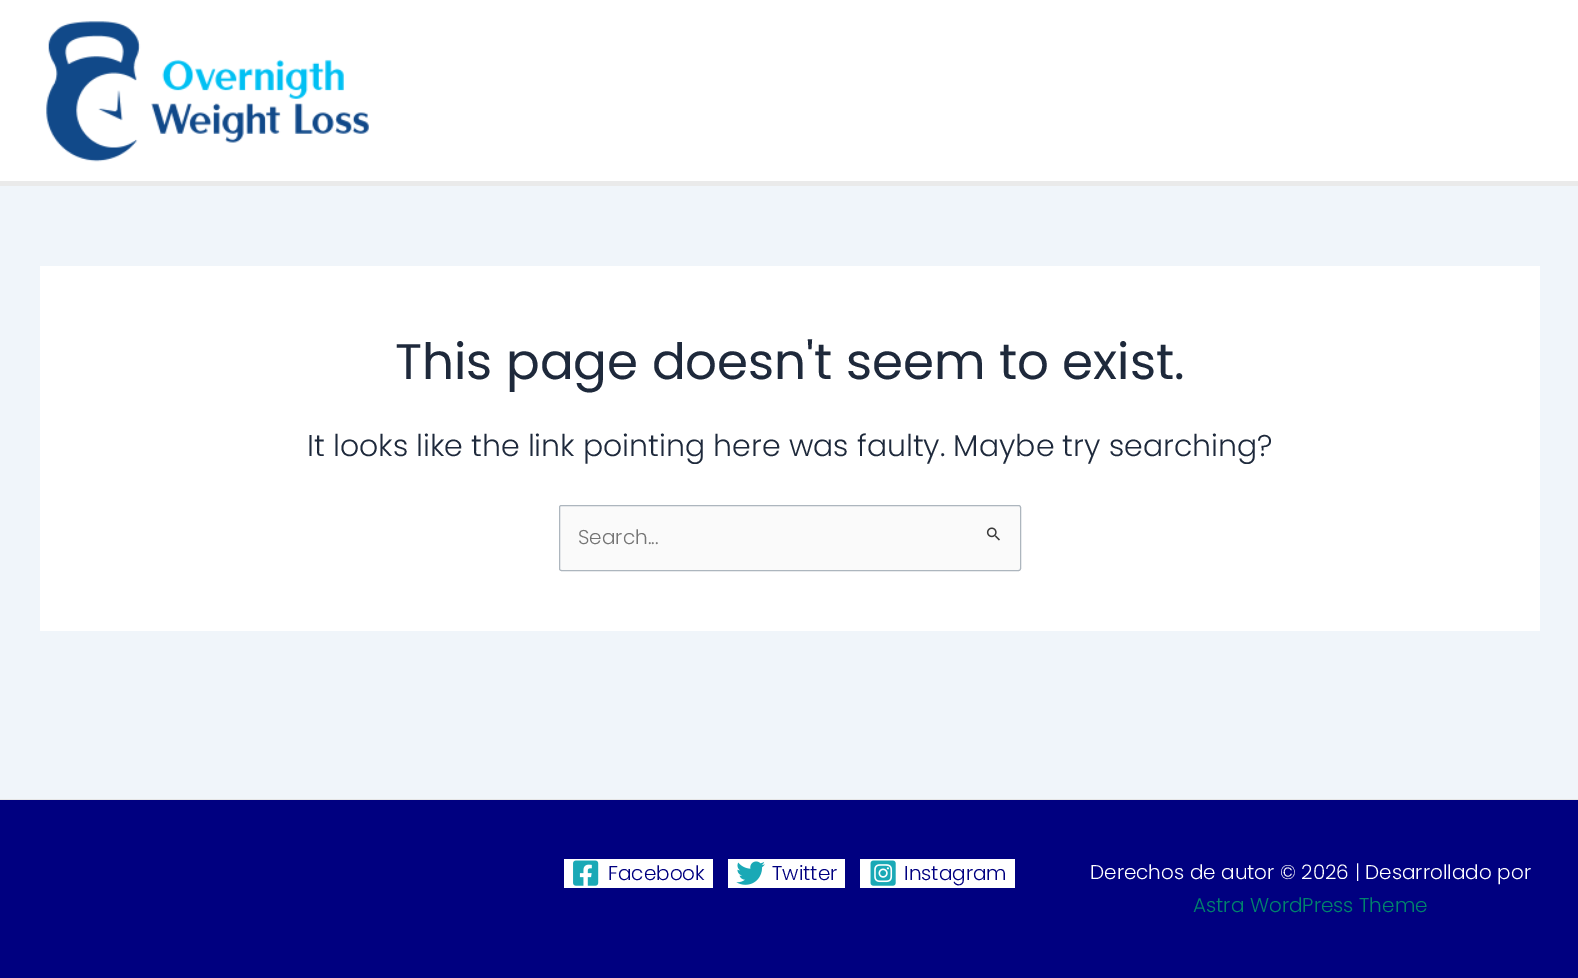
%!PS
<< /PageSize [1578 978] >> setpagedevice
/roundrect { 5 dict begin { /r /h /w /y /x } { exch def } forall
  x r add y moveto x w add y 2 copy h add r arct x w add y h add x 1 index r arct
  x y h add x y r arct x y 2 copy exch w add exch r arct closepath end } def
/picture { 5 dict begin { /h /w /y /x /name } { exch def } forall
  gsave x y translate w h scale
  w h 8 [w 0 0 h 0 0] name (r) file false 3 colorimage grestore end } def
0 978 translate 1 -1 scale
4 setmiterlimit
0.941 0.961 0.98 setrgbcolor
0 0 1578 978 rectfill
1 setgray
0 0 1578 181 rectfill
0.918 setgray
0 181 1578 5 rectfill
(img1.rgb) 46 21 323 141 picture
1 setgray
40 266 1500 365 rectfill
/Poppins-Regular [50 0 0 -50 0 0] selectfont
0.118 0.161 0.231 setrgbcolor
395 379 moveto (This page doesn't seem to exist.) show
/Poppins-Light [30 0 0 -30 0 0] selectfont
307 456 moveto (It looks like the link pointing here was faulty. Maybe try searching?) show
0.98 setgray
559.5 505.5 461 65 2 roundrect gsave fill grestore
0.678 0.714 0.745 setrgbcolor
stroke
/Poppins-Light [20 0 0 -20 0 0] selectfont
0.459 setgray
578 544 moveto (Search...) show
(img2.rgb) 986 527 14 14 picture
0 0 0.502 setrgbcolor
0 800 1578 178 rectfill
0.902 setgray
0 799 1578 1 rectfill
1 setgray
564 859 149 29 rectfill
(img3.rgb) 573 860 26 26 picture
0 0 0.502 setrgbcolor
608 880 moveto (Facebook) show
1 setgray
728 859 117 29 rectfill
(img4.rgb) 736 861 29 24 picture
0 0 0.502 setrgbcolor
772 880 moveto (Twitter) show
1 setgray
860 859 155 29 rectfill
(img5.rgb) 870 860 26 26 picture
0 0 0.502 setrgbcolor
904 880 moveto (Instagram) show
1 setgray
1090 879 moveto (Derechos de autor © 2026 | Desarrollado por) show
0 0.514 0.424 setrgbcolor
1193 912 moveto (Astra WordPress Theme) show
showpage
